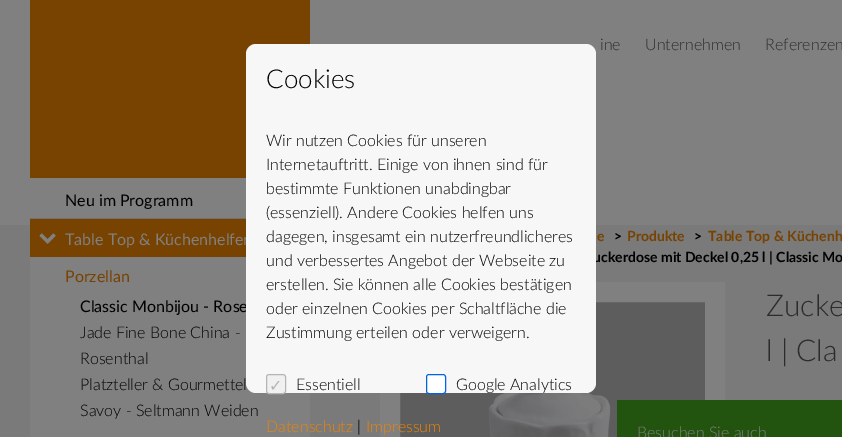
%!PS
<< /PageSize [842 437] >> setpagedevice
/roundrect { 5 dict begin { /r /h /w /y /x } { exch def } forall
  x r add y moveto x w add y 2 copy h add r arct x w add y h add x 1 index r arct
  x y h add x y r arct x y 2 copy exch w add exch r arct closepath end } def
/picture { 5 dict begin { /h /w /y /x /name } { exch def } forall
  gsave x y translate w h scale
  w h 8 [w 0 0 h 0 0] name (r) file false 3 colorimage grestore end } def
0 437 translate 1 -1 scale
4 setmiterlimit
0.502 setgray
0 0 842 437 rectfill
0.471 0.259 0 setrgbcolor
30 0 280 178 rectfill
/Lato-Light [16 0 0 -16 0 0] selectfont
0.173 setgray
600 50 moveto (ine) show
645 50 moveto (Unternehmen) show
765 50 moveto (Referenzen) show
0.478 setgray
0 225 842 212 rectfill
0.502 setgray
30 257 280 180 rectfill
0.471 0.259 0 setrgbcolor
30 219 216 38 rectfill
/Lato-Regular [16 0 0 -16 0 0] selectfont
0.502 setgray
65 245 moveto (Table Top & Küchenhelfer) show
0 setgray
80 312 moveto (Classic Monbijou - Rose) show
/Lato-Bold [14 0 0 -14 0 0] selectfont
593 262 moveto (uckerdose mit Deckel 0,25 l | Classic Mo) show
0.365 setgray
400 302 305 135 rectfill
(img2.rgb) 488 392 123 45 picture
0.502 setgray
20 setlinewidth
390 292 325 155 rectstroke
0.969 setgray
246 44 350 349 10 roundrect fill
/Lato-Light [26 0 0 -26 0 0] selectfont
0 setgray
266 88 moveto (Cookies) show
/Lato-Light [16 0 0 -16 0 0] selectfont
266 146 moveto (Wir nutzen Cookies für unseren) show
266 170 moveto (Internetauftritt. Einige von ihnen sind für) show
266 194 moveto (bestimmte Funktionen unabdingbar) show
266 218 moveto (\(essenziell\). Andere Cookies helfen uns) show
266 242 moveto (dagegen, insgesamt ein nutzerfreundlicheres) show
266 266 moveto (und verbessertes Angebot der Webseite zu) show
266 290 moveto (erstellen. Sie können alle Cookies bestätigen) show
266 314 moveto (oder einzelnen Cookies per Schaltfläche die) show
266 338 moveto (Zustimmung erteilen oder verweigern.) show
0.941 setgray
266.5 374.5 19 19 2.5 roundrect gsave fill grestore
0.71 setgray
1 setlinewidth
stroke
/DejaVuSans-Regular [16 0 0 -16 0 0] selectfont
269 391 moveto (✓) show
/Lato-Light [16 0 0 -16 0 0] selectfont
0 setgray
296 390 moveto (Essentiell) show
1 setgray
426.5 374.5 19 19 2.5 roundrect gsave fill grestore
0 0.388 0.89 setrgbcolor
stroke
0 setgray
456 390 moveto (Google Analytics) show
0.941 0.518 0 setrgbcolor
266 432 moveto (Datenschutz) show
0 setgray
357 432 moveto (|) show
0.941 0.518 0 setrgbcolor
366 432 moveto (Impressum) show
0.439 setgray
30 218 216 1 rectfill
/Lato-Regular [16 0 0 -16 0 0] selectfont
0 setgray
65 206 moveto (Neu im Programm) show
(img1.rgb) 39 233 17 11 picture
0.471 0.259 0 setrgbcolor
65 282 moveto (Porzellan) show
/Lato-Light [16 0 0 -16 0 0] selectfont
0 setgray
80 338 moveto (Jade Fine Bone China -) show
80 364 moveto (Rosenthal) show
80 390 moveto (Platzteller & Gourmettel) show
80 416 moveto (Savoy - Seltmann Weiden) show
/Lato-Bold [14 0 0 -14 0 0] selectfont
0.471 0.259 0 setrgbcolor
597 241 moveto (e) show
0 setgray
614 241 moveto (>) show
0.471 0.259 0 setrgbcolor
627 241 moveto (Produkte) show
0 setgray
694 241 moveto (>) show
0.471 0.259 0 setrgbcolor
708 241 moveto (Table Top & Küchenh) show
/Lato-Light [30 0 0 -30 0 0] selectfont
0.173 setgray
766 316 moveto (Zucke) show
766 361 moveto (l | Cla) show
0.137 0.329 0.059 setrgbcolor
617 400 225 37 rectfill
/Lato-Light [16 0 0 -16 0 0] selectfont
0.502 setgray
637 438 moveto (Besuchen Sie auch) show
showpage
